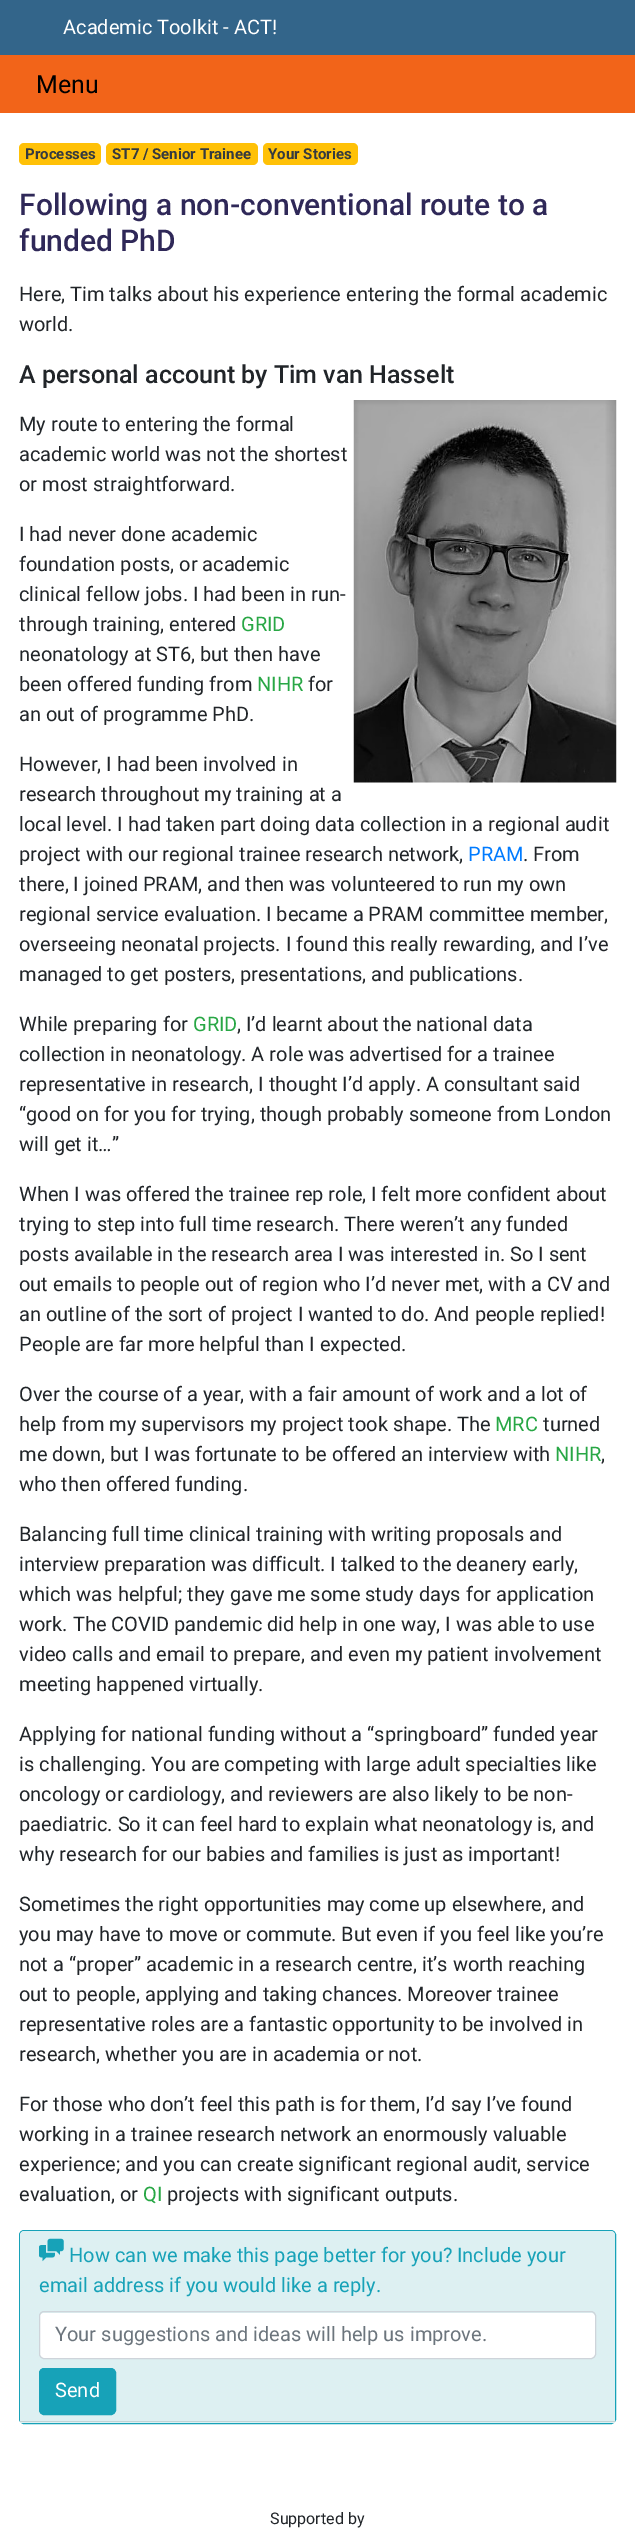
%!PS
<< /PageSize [635 2530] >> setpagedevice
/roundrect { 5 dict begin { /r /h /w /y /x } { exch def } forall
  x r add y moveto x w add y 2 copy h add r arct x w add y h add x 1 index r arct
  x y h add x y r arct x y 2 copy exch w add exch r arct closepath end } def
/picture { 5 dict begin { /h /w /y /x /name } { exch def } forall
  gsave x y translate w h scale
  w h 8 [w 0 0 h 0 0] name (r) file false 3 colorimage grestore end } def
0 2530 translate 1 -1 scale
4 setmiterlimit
1 setgray
0 0 635 2530 rectfill
0.2 0.396 0.541 setrgbcolor
0 0 635 55 rectfill
/Roboto-Regular [20 0 0 -20 0 0] selectfont
1 setgray
63 34 moveto (Academic Toolkit - ACT!) show
0.949 0.392 0.098 setrgbcolor
0 55 635 58 rectfill
/Roboto-Regular [25 0 0 -25 0 0] selectfont
0 setgray
36 93 moveto (Menu) show
1 0.757 0.027 setrgbcolor
19 143 82 22 5 roundrect fill
/Roboto-Bold [15 0 0 -15 0 0] selectfont
0.204 0.227 0.251 setrgbcolor
25 159 moveto (Processes) show
1 0.757 0.027 setrgbcolor
106 143 152 22 5 roundrect fill
0.204 0.227 0.251 setrgbcolor
112 159 moveto (ST7 / Senior Trainee) show
1 0.757 0.027 setrgbcolor
263 143 95 22 5 roundrect fill
0.204 0.227 0.251 setrgbcolor
268 159 moveto (Your Stories) show
/Roboto-Medium [30 0 0 -30 0 0] selectfont
0.184 0.157 0.345 setrgbcolor
19 215 moveto (Following a non-conventional route to a) show
19 251 moveto (funded PhD) show
/Roboto-Regular [20 0 0 -20 0 0] selectfont
0.129 0.145 0.161 setrgbcolor
19 301 moveto (Here, Tim talks about his experience entering the formal academic) show
19 331 moveto (world.) show
/Roboto-Medium [25 0 0 -25 0 0] selectfont
19 383 moveto (A personal account by Tim van Hasselt) show
/Roboto-Regular [20 0 0 -20 0 0] selectfont
19 431 moveto (My route to entering the formal) show
19 461 moveto (academic world was not the shortest) show
19 491 moveto (or most straightforward.) show
(img1.rgb) 353 400 264 383 picture
19 541 moveto (I had never done academic) show
19 571 moveto (foundation posts, or academic) show
19 601 moveto (clinical fellow jobs. I had been in run-) show
19 631 moveto (through training, entered) show
0.157 0.655 0.271 setrgbcolor
241 631 moveto (GRID) show
0.129 0.145 0.161 setrgbcolor
19 661 moveto (neonatology at ST6, but then have) show
19 691 moveto (been offered funding from) show
0.157 0.655 0.271 setrgbcolor
257 691 moveto (NIHR) show
0.129 0.145 0.161 setrgbcolor
308 691 moveto (for) show
19 721 moveto (an out of programme PhD.) show
19 771 moveto (However, I had been involved in) show
19 801 moveto (research throughout my training at a) show
19 831 moveto (local level. I had taken part doing data collection in a regional audit) show
19 861 moveto (project with our regional trainee research network,) show
0 0.482 1 setrgbcolor
468 861 moveto (PRAM) show
0.129 0.145 0.161 setrgbcolor
523 861 moveto (. From) show
19 891 moveto (there, I joined PRAM, and then was volunteered to run my own) show
19 921 moveto (regional service evaluation. I became a PRAM committee member,) show
19 951 moveto (overseeing neonatal projects. I found this really rewarding, and I’ve) show
19 981 moveto (managed to get posters, presentations, and publications.) show
19 1031 moveto (While preparing for) show
0.157 0.655 0.271 setrgbcolor
193 1031 moveto (GRID) show
0.129 0.145 0.161 setrgbcolor
237 1031 moveto (, I’d learnt about the national data) show
19 1061 moveto (collection in neonatology. A role was advertised for a trainee) show
19 1091 moveto (representative in research, I thought I’d apply. A consultant said) show
19 1121 moveto (“good on for you for trying, though probably someone from London) show
19 1151 moveto (will get it…”) show
19 1201 moveto (When I was offered the trainee rep role, I felt more confident about) show
19 1231 moveto (trying to step into full time research. There weren’t any funded) show
19 1261 moveto (posts available in the research area I was interested in. So I sent) show
19 1291 moveto (out emails to people out of region who I’d never met, with a CV and) show
19 1321 moveto (an outline of the sort of project I wanted to do. And people replied!) show
19 1351 moveto (People are far more helpful than I expected.) show
19 1401 moveto (Over the course of a year, with a fair amount of work and a lot of) show
19 1431 moveto (help from my supervisors my project took shape. The) show
0.157 0.655 0.271 setrgbcolor
495 1431 moveto (MRC) show
0.129 0.145 0.161 setrgbcolor
543 1431 moveto (turned) show
19 1461 moveto (me down, but I was fortunate to be offered an interview with) show
0.157 0.655 0.271 setrgbcolor
555 1461 moveto (NIHR) show
0.129 0.145 0.161 setrgbcolor
601 1461 moveto (,) show
19 1491 moveto (who then offered funding.) show
19 1541 moveto (Balancing full time clinical training with writing proposals and) show
19 1571 moveto (interview preparation was difficult. I talked to the deanery early,) show
19 1601 moveto (which was helpful; they gave me some study days for application) show
19 1631 moveto (work. The COVID pandemic did help in one way, I was able to use) show
19 1661 moveto (video calls and email to prepare, and even my patient involvement) show
19 1691 moveto (meeting happened virtually.) show
19 1741 moveto (Applying for national funding without a “springboard” funded year) show
19 1771 moveto (is challenging. You are competing with large adult specialties like) show
19 1801 moveto (oncology or cardiology, and reviewers are also likely to be non-) show
19 1831 moveto (paediatric. So it can feel hard to explain what neonatology is, and) show
19 1861 moveto (why research for our babies and families is just as important!) show
19 1911 moveto (Sometimes the right opportunities may come up elsewhere, and) show
19 1941 moveto (you may have to move or commute. But even if you feel like you’re) show
19 1971 moveto (not a “proper” academic in a research centre, it’s worth reaching) show
19 2001 moveto (out to people, applying and taking chances. Moreover trainee) show
19 2031 moveto (representative roles are a fantastic opportunity to be involved in) show
19 2061 moveto (research, whether you are in academia or not.) show
19 2111 moveto (For those who don’t feel this path is for them, I’d say I’ve found) show
19 2141 moveto (working in a trainee research network an enormously valuable) show
19 2171 moveto (experience; and you can create significant regional audit, service) show
19 2201 moveto (evaluation, or) show
0.157 0.655 0.271 setrgbcolor
143 2201 moveto (QI) show
0.129 0.145 0.161 setrgbcolor
167 2201 moveto (projects with significant outputs.) show
0.09 0.635 0.722 setrgbcolor
19.5 2230.5 596 193 4.5 roundrect stroke
0.867 0.941 0.949 setrgbcolor
newpath 24 2231 moveto 611 2231 lineto 613 2231 615 2233 615 2235 curveto 615 2423 lineto 20 2423 lineto 20 2235 lineto 20 2233 22 2231 24 2231 curveto closepath fill
0.757 0.824 0.831 setrgbcolor
20 2421 595 1 rectfill
(img2.rgb) 39 2238 25 24 picture
0.09 0.635 0.722 setrgbcolor
69 2262 moveto (How can we make this page better for you? Include your) show
39 2292 moveto (email address if you would like a reply.) show
1 setgray
40 2313 555 45 4 roundrect fill
0.808 0.831 0.855 setrgbcolor
39.5 2311.5 556 47 4.5 roundrect stroke
0.424 0.459 0.49 setrgbcolor
55 2341 moveto (Your suggestions and ideas will help us improve.) show
0.09 0.635 0.722 setrgbcolor
39.5 2368.5 76 46 4.5 roundrect gsave fill grestore
stroke
1 setgray
55 2397 moveto (Send) show
/Roboto-Regular [16 0 0 -16 0 0] selectfont
0.129 0.145 0.161 setrgbcolor
270 2524 moveto (Supported by) show
showpage
